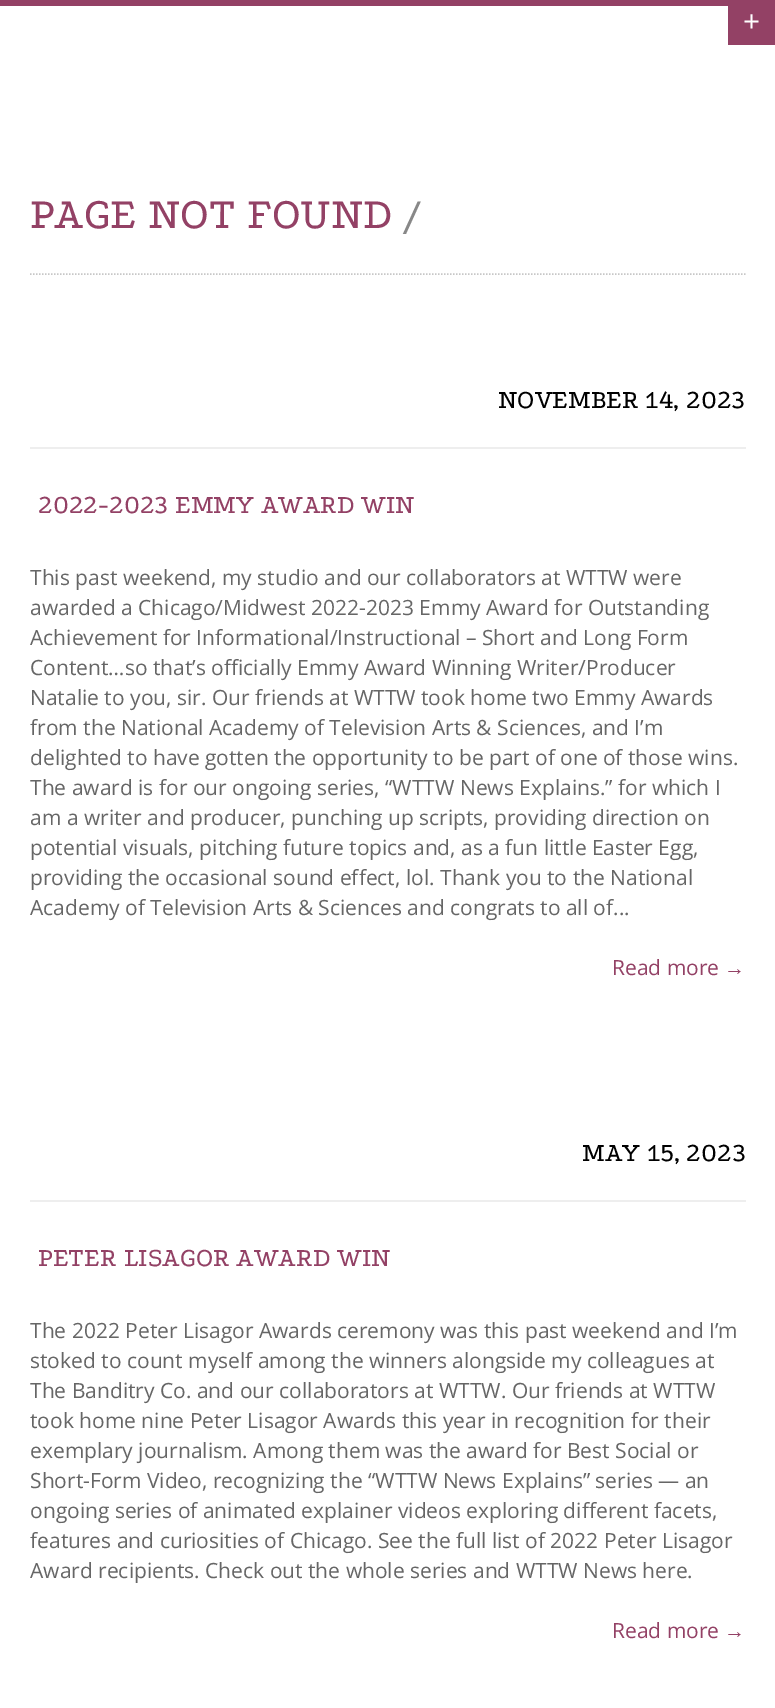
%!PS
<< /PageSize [775 1708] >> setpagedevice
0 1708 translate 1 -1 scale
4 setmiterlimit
1 setgray
0 0 775 1708 rectfill
0.576 0.255 0.396 setrgbcolor
0 0 775 6 rectfill
728 6 47 39 rectfill
/OpenSans-Regular [30 0 0 -30 0 0] selectfont
1 setgray
743 32 moveto (+) show
/Podkova-Regular [45 0 0 -45 0 0] selectfont
0.576 0.255 0.396 setrgbcolor
30 228 moveto (PAGE NOT FOUND) show
0.533 setgray
404 228 moveto (/) show
0.78 setgray
1.5 setlinewidth
[1.5 1.5] 0 setdash
newpath 30 274 moveto 745.5 274 lineto stroke
/Podkova-Regular [27 0 0 -27 0 0] selectfont
0 setgray
498 408 moveto (NOVEMBER 14, 2023) show
0.933 setgray
30 447 716 2 rectfill
0.576 0.255 0.396 setrgbcolor
38 513 moveto (2022-2023 EMMY AWARD WIN) show
/OpenSans-Regular [21 0 0 -21 0 0] selectfont
0.4 setgray
30 585 moveto (This past weekend, my studio and our collaborators at WTTW were) show
30 615 moveto (awarded a Chicago/Midwest 2022-2023 Emmy Award for Outstanding) show
30 645 moveto (Achievement for Informational/Instructional – Short and Long Form) show
30 675 moveto (Content…so that’s officially Emmy Award Winning Writer/Producer) show
30 705 moveto (Natalie to you, sir. Our friends at WTTW took home two Emmy Awards) show
30 735 moveto (from the National Academy of Television Arts & Sciences, and I’m) show
30 765 moveto (delighted to have gotten the opportunity to be part of one of those wins.) show
30 795 moveto (The award is for our ongoing series, “WTTW News Explains.” for which I) show
30 825 moveto (am a writer and producer, punching up scripts, providing direction on) show
30 855 moveto (potential visuals, pitching future topics and, as a fun little Easter Egg,) show
30 885 moveto (providing the occasional sound effect, lol. Thank you to the National) show
30 915 moveto (Academy of Television Arts & Sciences and congrats to all of...) show
0.576 0.255 0.396 setrgbcolor
612 975 moveto (Read more) show
/LiberationSans-Regular [21 0 0 -21 0 0] selectfont
724 975 moveto (→) show
/Podkova-Regular [27 0 0 -27 0 0] selectfont
0 setgray
582 1161 moveto (MAY 15, 2023) show
0.933 setgray
30 1200 716 2 rectfill
0.576 0.255 0.396 setrgbcolor
38 1266 moveto (PETER LISAGOR AWARD WIN) show
/OpenSans-Regular [21 0 0 -21 0 0] selectfont
0.4 setgray
30 1338 moveto (The 2022 Peter Lisagor Awards ceremony was this past weekend and I’m) show
30 1368 moveto (stoked to count myself among the winners alongside my colleagues at) show
30 1398 moveto (The Banditry Co. and our collaborators at WTTW. Our friends at WTTW) show
30 1428 moveto (took home nine Peter Lisagor Awards this year in recognition for their) show
30 1458 moveto (exemplary journalism. Among them was the award for Best Social or) show
30 1488 moveto (Short-Form Video, recognizing the “WTTW News Explains” series — an) show
30 1518 moveto (ongoing series of animated explainer videos exploring different facets,) show
30 1548 moveto (features and curiosities of Chicago. See the full list of 2022 Peter Lisagor) show
30 1578 moveto (Award recipients. Check out the whole series and WTTW News here.) show
0.576 0.255 0.396 setrgbcolor
612 1638 moveto (Read more) show
/LiberationSans-Regular [21 0 0 -21 0 0] selectfont
724 1638 moveto (→) show
showpage
